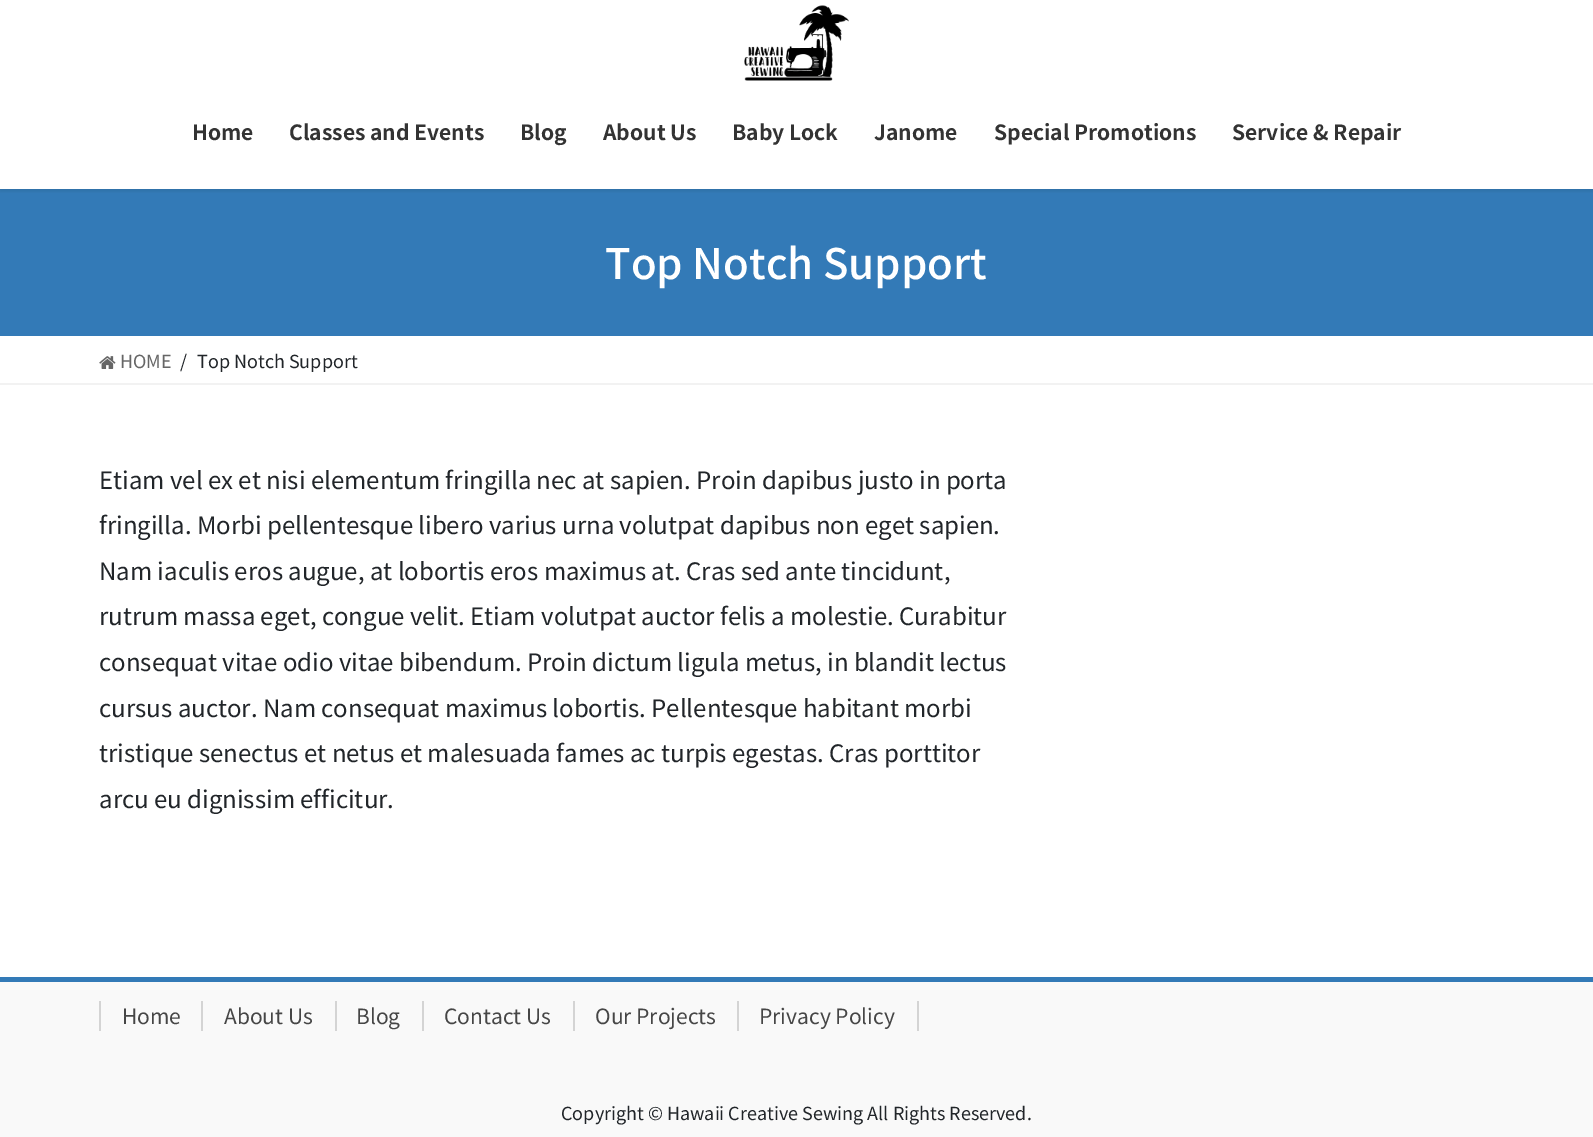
%!PS
<< /PageSize [1593 1137] /PageUsesTransparency true >> setpagedevice
/alpha { dup .setfillconstantalpha .setstrokeconstantalpha } def
/roundrect { 5 dict begin { /r /h /w /y /x } { exch def } forall
  x r add y moveto x w add y 2 copy h add r arct x w add y h add x 1 index r arct
  x y h add x y r arct x y 2 copy exch w add exch r arct closepath end } def
/shadow { 12 dict begin { /a /b /q /h /w /y /x } { exch def } forall gsave /was 0 def
  9 -2 -9 { dup b mul 4 div /e exch def 1 sub .425 mul 2.718 exch exp 1 add a .99 .min exch div /now exch def
    1 1 now sub 1 was sub div sub alpha /was now def
    w h .min e 2 mul add 0 gt { x e sub y e sub w e 2 mul add h e 2 mul add
      q e add b .6 mul add w h .min 2 div e add .min 0 .max roundrect fill } if } for grestore end } def
/picture { 5 dict begin { /h /w /y /x /name } { exch def } forall
  gsave x y translate w h scale
  w h 8 [w 0 0 h 0 0] name (r) file false 3 colorimage grestore end } def
0 .pushpdf14devicefilter
0 1137 translate 1 -1 scale
4 setmiterlimit
1 setgray
0 0 1593 1137 rectfill
0.2 0.478 0.718 setrgbcolor
0 189 1593 147 rectfill
gsave
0 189 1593 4 rectclip
0 setgray
0 -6 1593 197 0 2 0.1 shadow
grestore
(img1.rgb) 744 5 105 76 picture
/NotoSansJP-Bold [21 0 0 -21 0 0] selectfont
0.2 setgray
192 140 moveto (Home) show
289 140 moveto (Classes and Events) show
520 140 moveto (Blog) show
603 140 moveto (About Us) show
732 140 moveto (Baby Lock) show
874 140 moveto (Janome) show
994 140 moveto (Special Promotions) show
1232 140 moveto (Service & Repair) show
/NotoSansJP-Medium [42 0 0 -42 0 0] selectfont
1 setgray
605 279 moveto (Top Notch Support) show
0.949 setgray
0 383 1593 2 rectfill
(img2.rgb) 99 356 17 13 picture
/NotoSansJP-Regular [18 0 0 -18 0 0] selectfont
0.4 setgray
120 368 moveto (HOME) show
0.129 0.145 0.161 setrgbcolor
180 368 moveto (/) show
197 368 moveto (Top Notch Support) show
/NotoSansJP-Regular [24 0 0 -24 0 0] selectfont
99 489 moveto (Etiam vel ex et nisi elementum fringilla nec at sapien. Proin dapibus justo in porta) show
99 534 moveto (fringilla. Morbi pellentesque libero varius urna volutpat dapibus non eget sapien.) show
99 580 moveto (Nam iaculis eros augue, at lobortis eros maximus at. Cras sed ante tincidunt,) show
99 625 moveto (rutrum massa eget, congue velit. Etiam volutpat auctor felis a molestie. Curabitur) show
99 671 moveto (consequat vitae odio vitae bibendum. Proin dictum ligula metus, in blandit lectus) show
99 717 moveto (cursus auctor. Nam consequat maximus lobortis. Pellentesque habitant morbi) show
99 762 moveto (tristique senectus et netus et malesuada fames ac turpis egestas. Cras porttitor) show
99 808 moveto (arcu eu dignissim efficitur.) show
0.976 setgray
0 982 1593 155 rectfill
0.2 0.478 0.718 setrgbcolor
0 977 1593 5 rectfill
/NotoSansJP-Regular [21 0 0 -21 0 0] selectfont
0.275 setgray
122 1024 moveto (Home) show
0.831 setgray
99 1001 2 30 rectfill
0.275 setgray
224 1024 moveto (About Us) show
0.831 setgray
201 1001 2 30 rectfill
0.275 setgray
356 1024 moveto (Blog) show
0.831 setgray
335 1001 2 30 rectfill
0.275 setgray
444 1024 moveto (Contact Us) show
0.831 setgray
422 1001 2 30 rectfill
0.275 setgray
595 1024 moveto (Our Projects) show
0.831 setgray
573 1001 2 30 rectfill
0.275 setgray
759 1024 moveto (Privacy Policy) show
0.831 setgray
917 1001 2 30 rectfill
737 1001 2 30 rectfill
/NotoSansJP-Regular [18 0 0 -18 0 0] selectfont
0.129 0.145 0.161 setrgbcolor
561 1120 moveto (Copyright © Hawaii Creative Sewing All Rights Reserved.) show
.poppdf14devicefilter showpage
